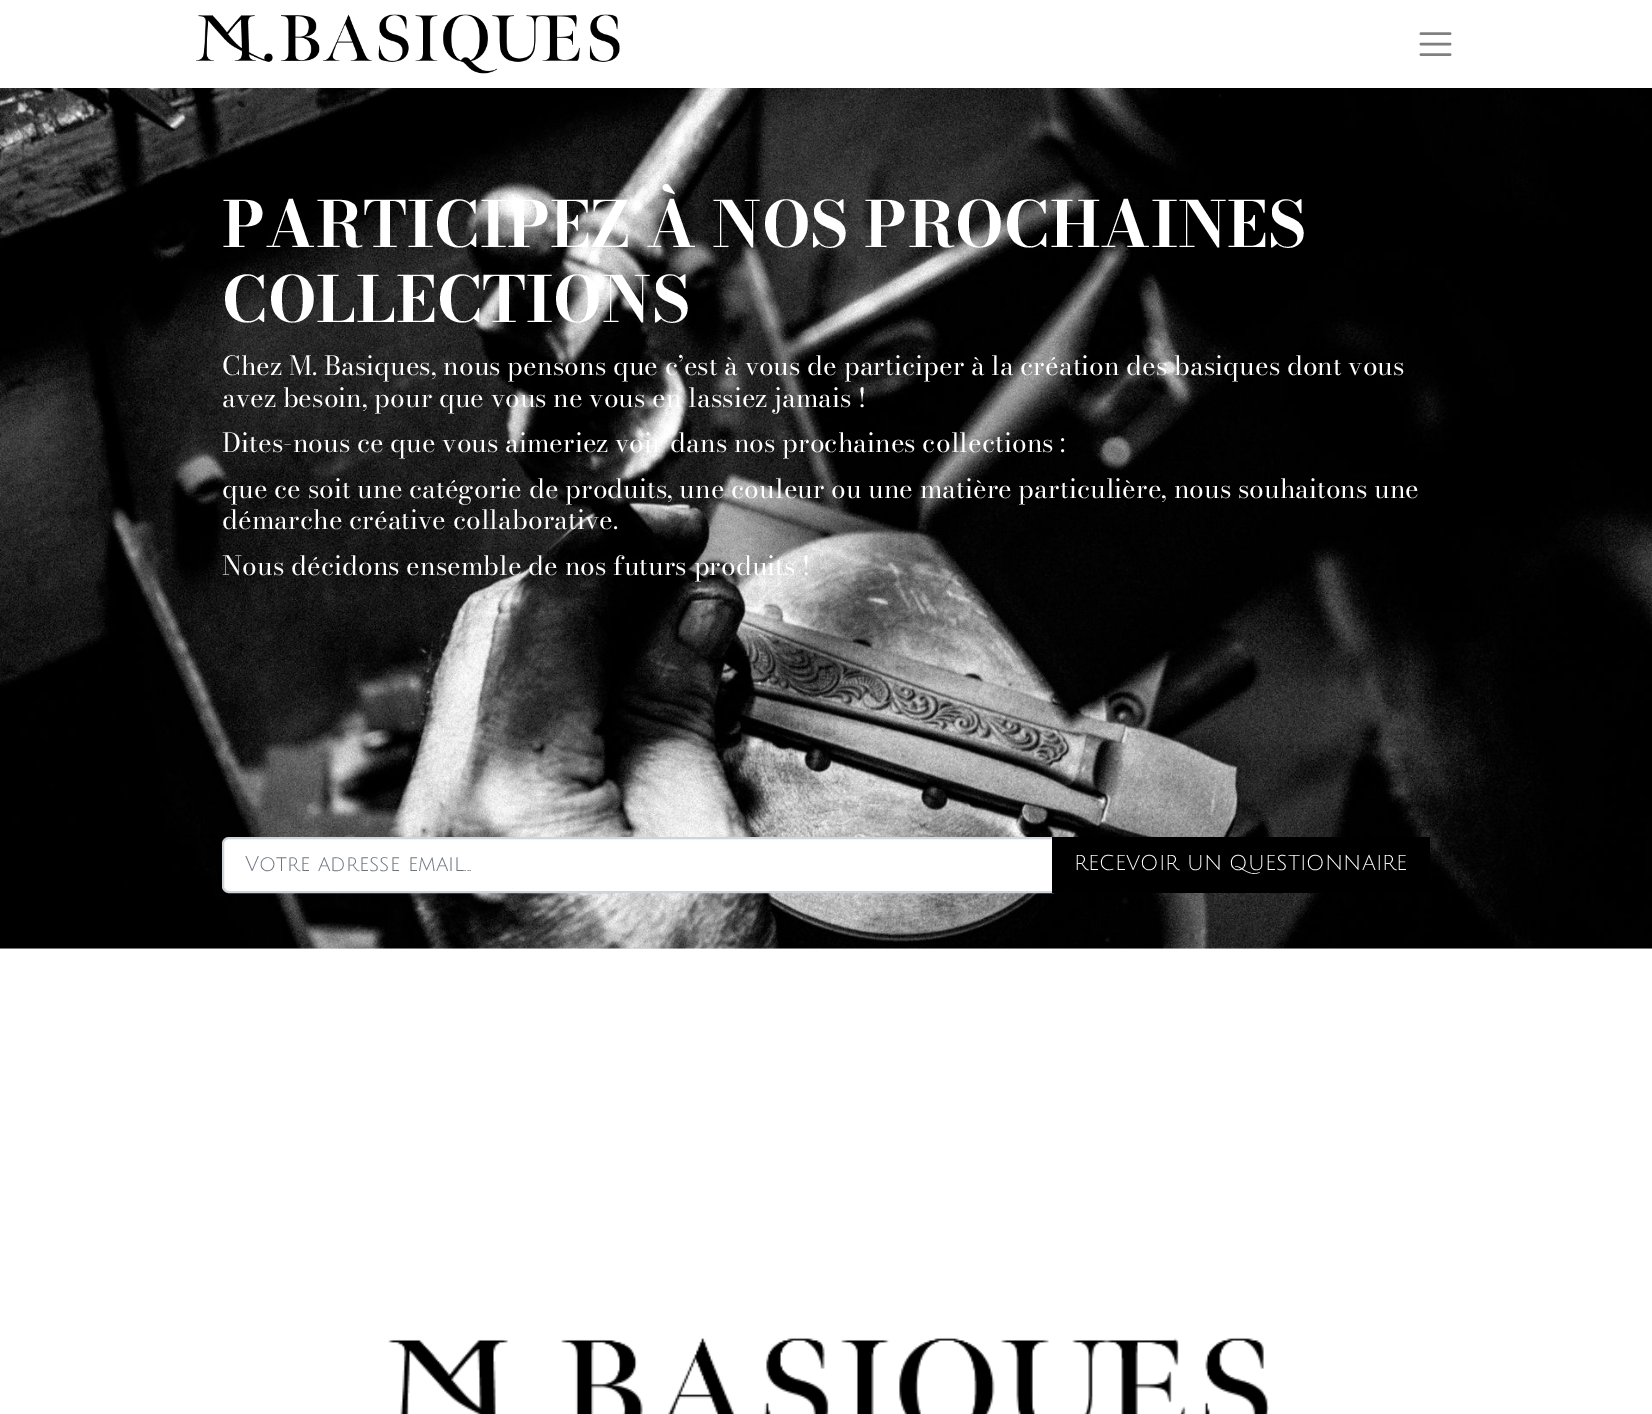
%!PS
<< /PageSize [1652 1414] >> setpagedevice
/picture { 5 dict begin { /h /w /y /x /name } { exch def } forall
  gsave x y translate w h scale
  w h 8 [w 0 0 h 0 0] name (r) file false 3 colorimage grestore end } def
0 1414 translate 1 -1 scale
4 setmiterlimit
1 setgray
0 0 1652 1414 rectfill
(img1.rgb) 196 14 424 60 picture
0.502 setgray
2.6 setlinewidth
1 setlinecap
newpath 1421 33.5 moveto 1450 33.5 lineto 1421 44 moveto 1450 44 lineto 1421 54.5 moveto 1450 54.5 lineto stroke
0.914 0.925 0.937 setrgbcolor
0 948 1652 1 rectfill
(img2.rgb) 0 88 1652 861 picture
/BodoniModa-Bold [63 0 0 -63 0 0] selectfont
1 setgray
222 247 moveto (PARTICIPEZ À NOS PROCHAINES) show
222 322 moveto (COLLECTIONS) show
/BodoniModa-Regular [26.25 0 0 -26.25 0 0] selectfont
222 375 moveto (Chez M. Basiques, nous pensons que c’est à vous de participer à la création des basiques dont vous) show
222 407 moveto (avez besoin, pour que vous ne vous en lassiez jamais !) show
222 452 moveto (Dites-nous ce que vous aimeriez voir dans nos prochaines collections :) show
222 498 moveto (que ce soit une catégorie de produits, une couleur ou une matière particulière, nous souhaitons une) show
222 529 moveto (démarche créative collaborative.) show
222 575 moveto (Nous décidons ensemble de nos futurs produits !) show
newpath 229 838 moveto 1053 838 lineto 1053 892 lineto 229 892 lineto 225.5 892 223 889.5 223 886 curveto 223 844 lineto 223 840.5 225.5 838 229 838 curveto closepath gsave fill grestore
0.808 0.831 0.855 setrgbcolor
2 setlinewidth
0 setlinecap
stroke
/JuliusSansOne-Regular [21 0 0 -21 0 0] selectfont
0.424 0.459 0.49 setrgbcolor
245 871 moveto (Votre adresse email...) show
0 setgray
1052 837 378 56 rectfill
1 setgray
1074 870 moveto (RECEVOIR UN QUESTIONNAIRE) show
(img3.rgb) 388 1337 881 77 picture
showpage
